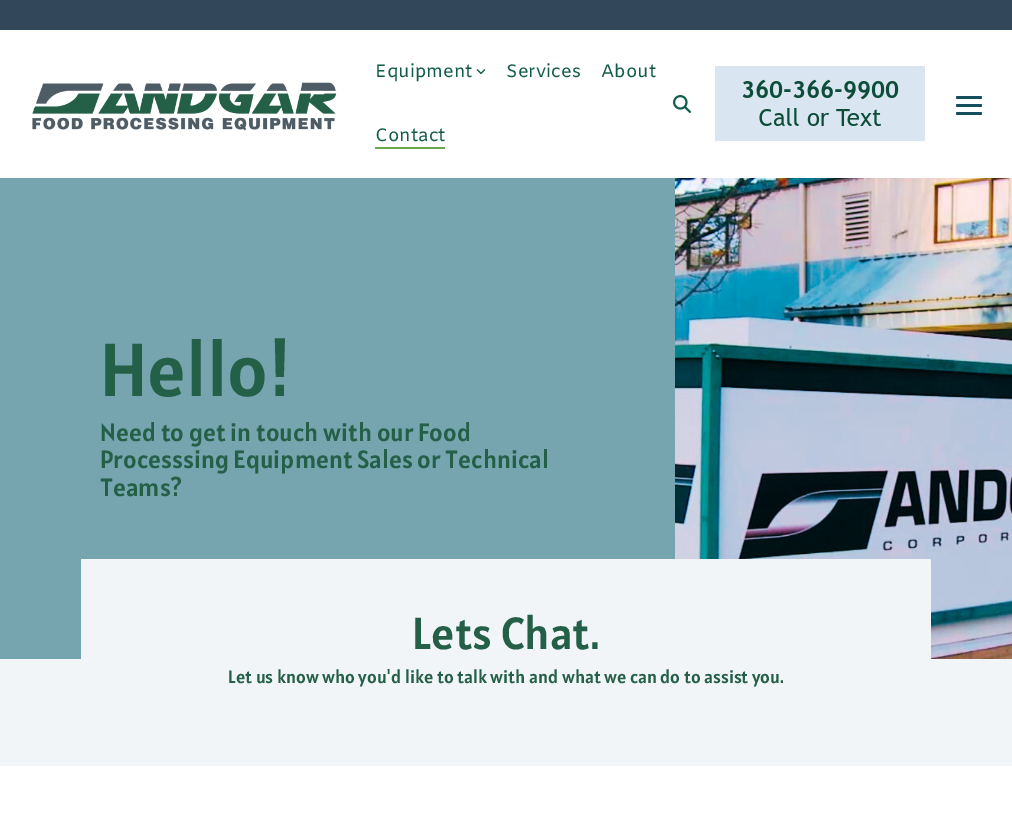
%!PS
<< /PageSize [1012 820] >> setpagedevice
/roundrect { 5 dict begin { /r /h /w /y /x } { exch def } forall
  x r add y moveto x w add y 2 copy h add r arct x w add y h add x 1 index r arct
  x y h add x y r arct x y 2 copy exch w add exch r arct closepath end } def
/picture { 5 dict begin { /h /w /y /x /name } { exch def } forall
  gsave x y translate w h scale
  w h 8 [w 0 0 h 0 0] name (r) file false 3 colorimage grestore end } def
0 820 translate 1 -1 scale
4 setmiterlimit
1 setgray
0 0 1012 820 rectfill
0.2 0.278 0.357 setrgbcolor
0 0 1012 30 rectfill
(img1.rgb) 32 82 305 49 picture
/Amiko-Regular [18 0 0 -18 0 0] selectfont
0.075 0.361 0.294 setrgbcolor
375 77 moveto (Equipment) show
(img2.rgb) 476 69 10 6 picture
506 77 moveto (Services) show
601 77 moveto (About) show
375 141 moveto (Contact) show
0.412 0.659 0.31 setrgbcolor
375 147 70 2 rectfill
(img3.rgb) 673 95 18 18 picture
(img4.rgb) 715 66 210 75 picture
0.075 0.31 0.361 setrgbcolor
956 96 26 3 1.5 roundrect fill
956 104 26 3 1.5 roundrect fill
956 112 26 3 1.5 roundrect fill
0.463 0.647 0.686 setrgbcolor
0 178 675 481 rectfill
/Alatsi-Regular [75 0 0 -75 0 0] selectfont
0.141 0.373 0.278 setrgbcolor
100 396 moveto (Hello!) show
/Alatsi-Regular [25 0 0 -25 0 0] selectfont
100 441 moveto (Need to get in touch with our Food) show
100 468 moveto (Processsing Equipment Sales or Technical) show
100 496 moveto (Teams?) show
(img5.rgb) 675 178 337 481 picture
0.949 0.961 0.973 setrgbcolor
0 659 1012 107 rectfill
81 559 850 100 rectfill
/Alatsi-Regular [45 0 0 -45 0 0] selectfont
0.141 0.373 0.278 setrgbcolor
412 649 moveto (Lets Chat.) show
/Alatsi-Regular [18 0 0 -18 0 0] selectfont
228 683 moveto (Let us know who you'd like to talk with and what we can do to assist you.) show
showpage
